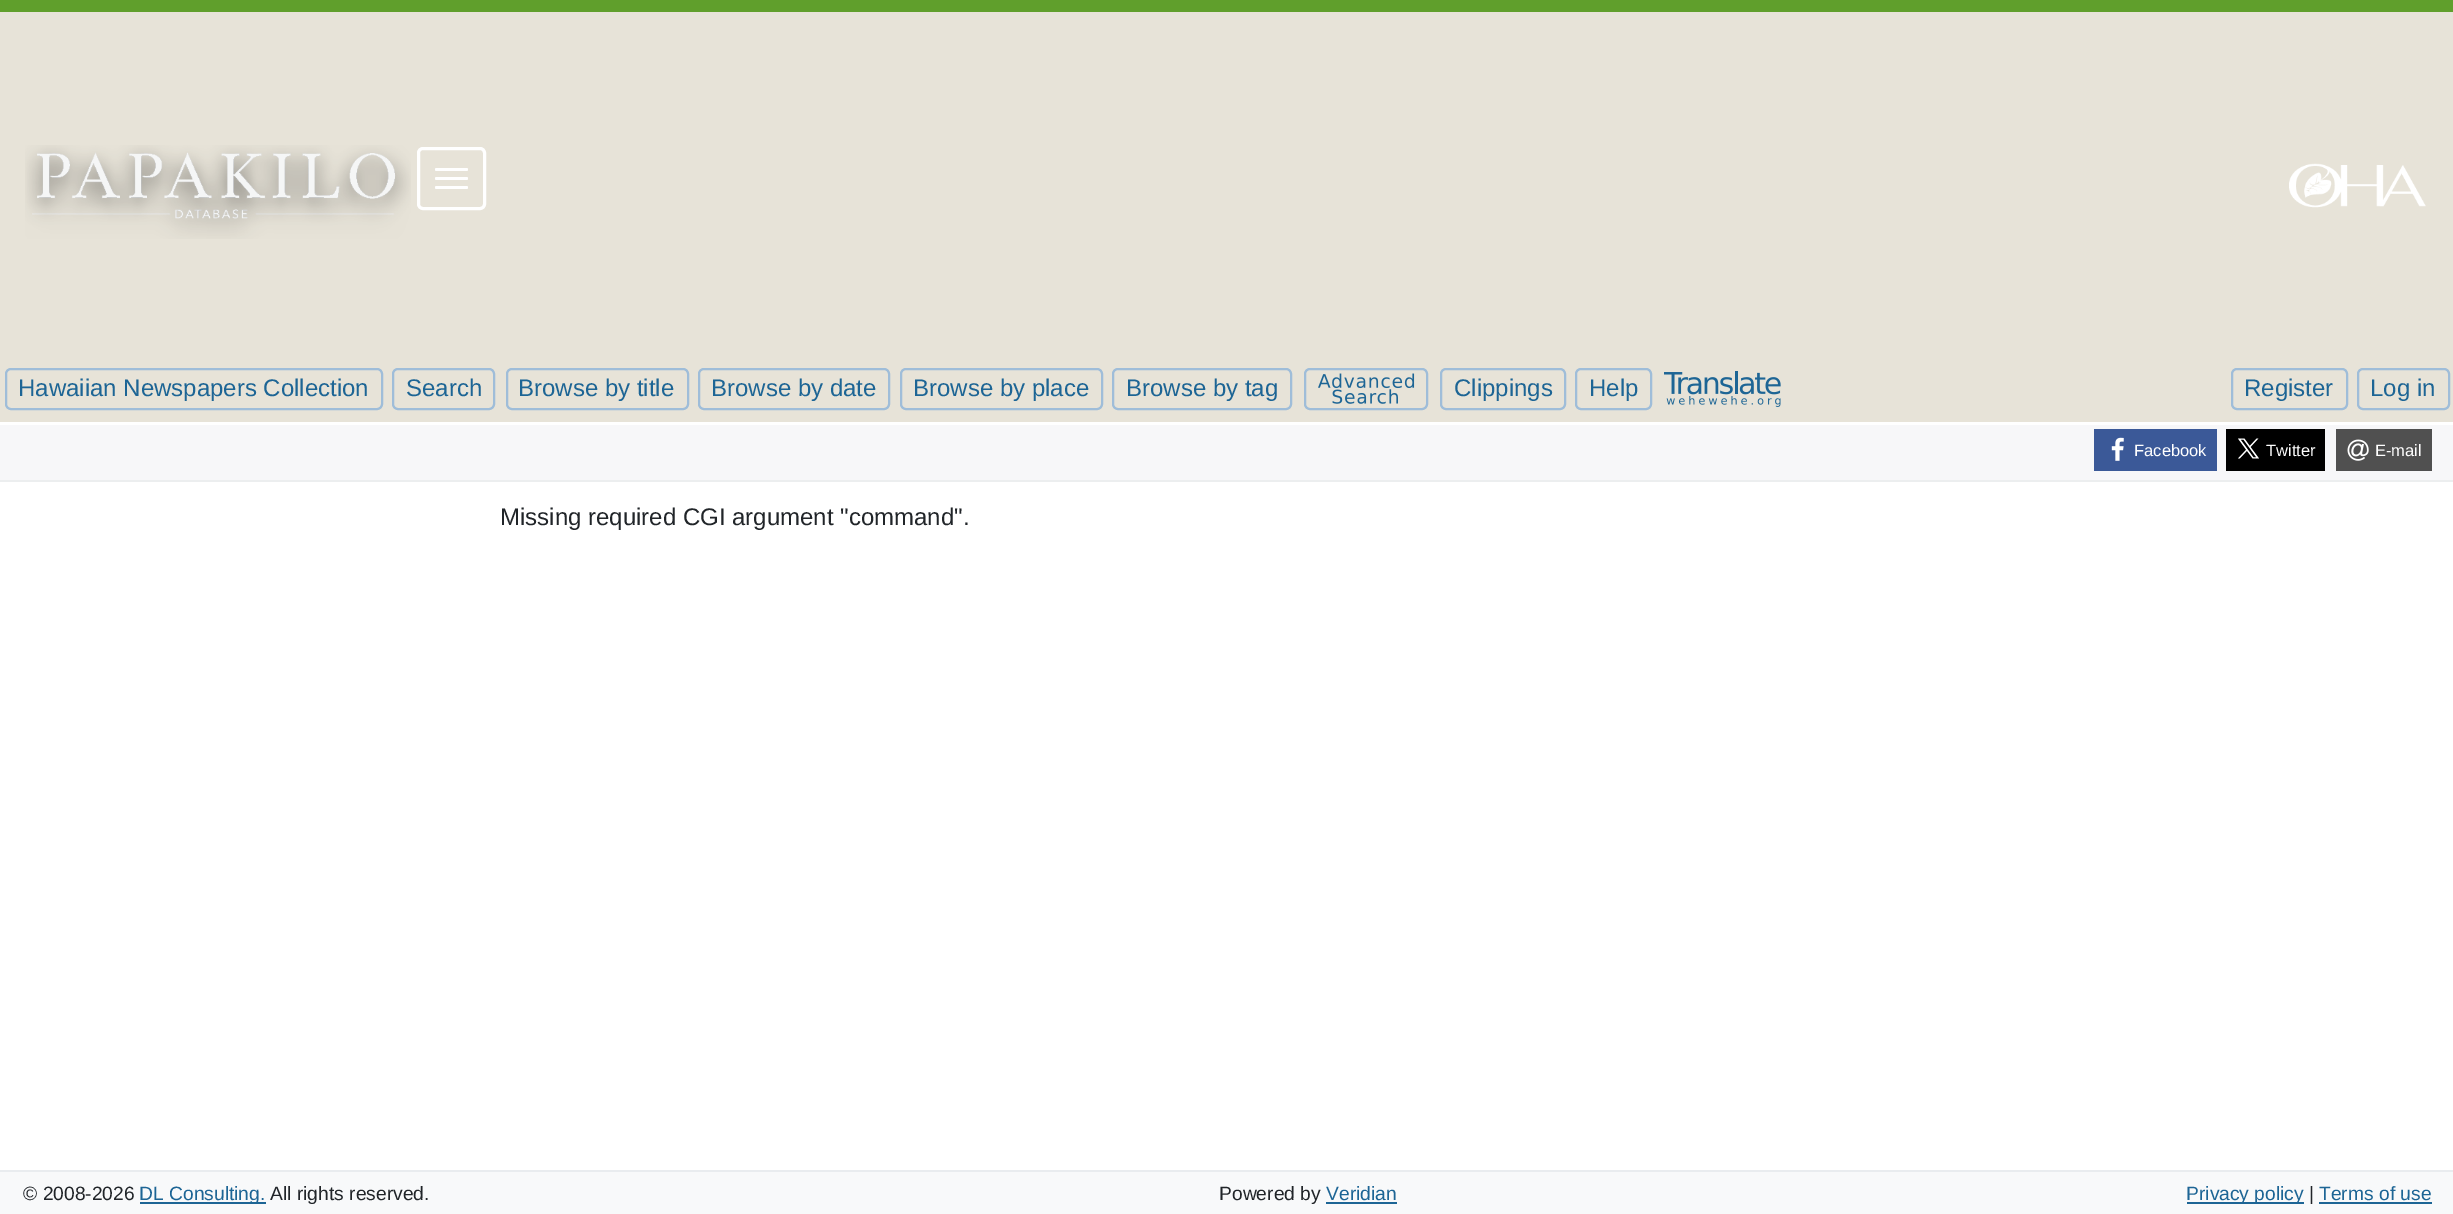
%!PS
<< /PageSize [2453 1214] >> setpagedevice
/roundrect { 5 dict begin { /r /h /w /y /x } { exch def } forall
  x r add y moveto x w add y 2 copy h add r arct x w add y h add x 1 index r arct
  x y h add x y r arct x y 2 copy exch w add exch r arct closepath end } def
/picture { 5 dict begin { /h /w /y /x /name } { exch def } forall
  gsave x y translate w h scale
  w h 8 [w 0 0 h 0 0] name (r) file false 3 colorimage grestore end } def
0 1214 translate 1 -1 scale
4 setmiterlimit
1 setgray
0 0 2453 1214 rectfill
0.376 0.624 0.173 setrgbcolor
0 0 2453 12 rectfill
0.906 0.89 0.847 setrgbcolor
0 12 2453 410 rectfill
(img1.rgb) 25 145 386 94 picture
1 setgray
3 setlinewidth
418.5 148.5 66 60 4.5 roundrect stroke
435 168 33 3 1.5 roundrect fill
435 177 33 3 1.5 roundrect fill
435 186 33 3 1.5 roundrect fill
(img2.rgb) 2289 163 137 45 picture
0.624 0.741 0.851 setrgbcolor
2 setlinewidth
6 369 376 40 5 roundrect stroke
/LiberationSans-Regular [24 0 0 -24 0 0] selectfont
0.114 0.396 0.584 setrgbcolor
18 396 moveto (Hawaiian Newspapers Collection) show
0.624 0.741 0.851 setrgbcolor
393 369 101 40 5 roundrect stroke
0.114 0.396 0.584 setrgbcolor
406 396 moveto (Search) show
0.624 0.741 0.851 setrgbcolor
507 369 181 40 5 roundrect stroke
0.114 0.396 0.584 setrgbcolor
518 396 moveto (Browse by title) show
0.624 0.741 0.851 setrgbcolor
699 369 190 40 5 roundrect stroke
0.114 0.396 0.584 setrgbcolor
711 396 moveto (Browse by date) show
0.624 0.741 0.851 setrgbcolor
901 369 201 40 5 roundrect stroke
0.114 0.396 0.584 setrgbcolor
913 396 moveto (Browse by place) show
0.624 0.741 0.851 setrgbcolor
1113 369 178 40 5 roundrect stroke
0.114 0.396 0.584 setrgbcolor
1126 396 moveto (Browse by tag) show
0.624 0.741 0.851 setrgbcolor
1305 369 122 40 5 roundrect stroke
(img3.rgb) 1318 373 97 31 picture
1441 369 124 40 5 roundrect stroke
0.114 0.396 0.584 setrgbcolor
1454 396 moveto (Clippings) show
0.624 0.741 0.851 setrgbcolor
1576 369 75 40 5 roundrect stroke
0.114 0.396 0.584 setrgbcolor
1589 396 moveto (Help) show
(img4.rgb) 1664 371 117 36 picture
0.624 0.741 0.851 setrgbcolor
2232 369 115 40 5 roundrect stroke
0.114 0.396 0.584 setrgbcolor
2244 396 moveto (Register) show
0.624 0.741 0.851 setrgbcolor
2358 369 91 40 5 roundrect stroke
0.114 0.396 0.584 setrgbcolor
2370 396 moveto (Log in) show
0.969 0.969 0.976 setrgbcolor
0 425 2453 55 rectfill
0.925 0.933 0.937 setrgbcolor
0 480 2453 2 rectfill
0.231 0.349 0.596 setrgbcolor
2094 429 123 42 rectfill
(img5.rgb) 2111 437 13 24 picture
/LiberationSans-Regular [16.5 0 0 -16.5 0 0] selectfont
1 setgray
2134 456 moveto (Facebook) show
0 setgray
2226 429 99 42 rectfill
(img6.rgb) 2238 438 21 21 picture
1 setgray
2266 456 moveto (Twitter) show
0.314 setgray
2336 429 96 42 rectfill
(img7.rgb) 2347 439 22 22 picture
1 setgray
2375 456 moveto (E-mail) show
/LiberationSans-Regular [24 0 0 -24 0 0] selectfont
0.129 0.145 0.161 setrgbcolor
500 525 moveto (Missing required CGI argument "command".) show
0.973 0.976 0.98 setrgbcolor
0 1172 2453 42 rectfill
0.914 0.925 0.937 setrgbcolor
0 1170 2453 2 rectfill
/LiberationSans-Regular [19.25 0 0 -19.25 0 0] selectfont
0.129 0.145 0.161 setrgbcolor
23 1200 moveto (© 2008-2026) show
0.114 0.396 0.584 setrgbcolor
140 1202 126 2 rectfill
139 1200 moveto (DL Consulting.) show
0.129 0.145 0.161 setrgbcolor
270 1200 moveto (All rights reserved.) show
1219 1200 moveto (Powered by) show
0.114 0.396 0.584 setrgbcolor
1326 1200 moveto (Veridian) show
1326 1202 71 2 rectfill
2187 1202 117 2 rectfill
2186 1200 moveto (Privacy policy) show
0.129 0.145 0.161 setrgbcolor
2309 1200 moveto (|) show
0.114 0.396 0.584 setrgbcolor
2319 1200 moveto (Terms of use) show
2319 1202 113 2 rectfill
showpage
